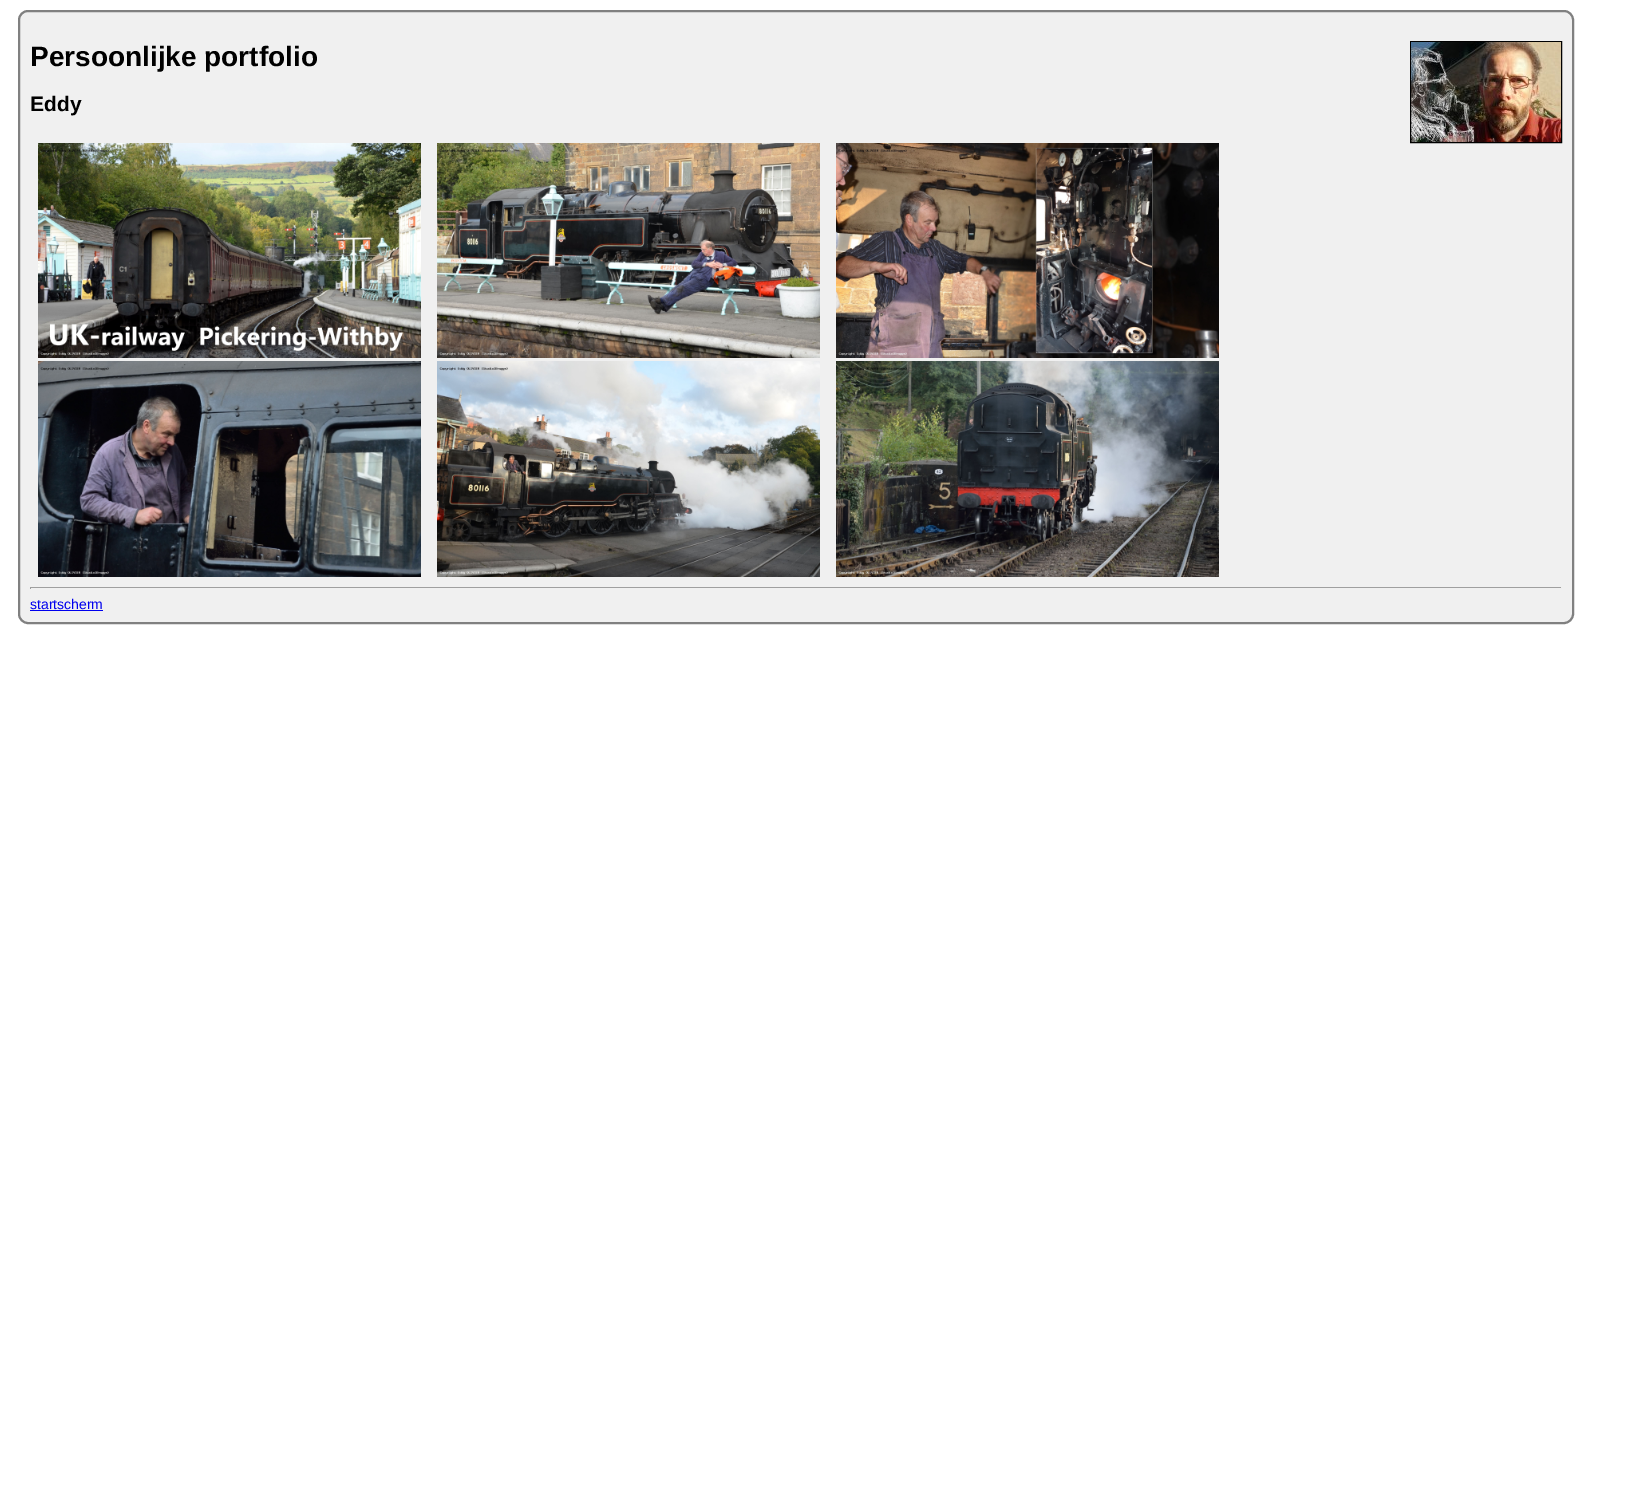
%!PS
<< /PageSize [1629 1498] >> setpagedevice
/roundrect { 5 dict begin { /r /h /w /y /x } { exch def } forall
  x r add y moveto x w add y 2 copy h add r arct x w add y h add x 1 index r arct
  x y h add x y r arct x y 2 copy exch w add exch r arct closepath end } def
/picture { 5 dict begin { /h /w /y /x /name } { exch def } forall
  gsave x y translate w h scale
  w h 8 [w 0 0 h 0 0] name (r) file false 3 colorimage grestore end } def
0 1498 translate 1 -1 scale
4 setmiterlimit
1 setgray
0 0 1629 1498 rectfill
0.941 setgray
19 11 1554 612 9 roundrect gsave fill grestore
0.502 setgray
2 setlinewidth
stroke
/LiberationSans-Bold [28 0 0 -28 0 0] selectfont
0 setgray
30 66 moveto (Persoonlijke portfolio) show
1 setlinewidth
1410.5 41.5 151 101 rectstroke
(img1.rgb) 1411 42 150 100 picture
/LiberationSans-Bold [21 0 0 -21 0 0] selectfont
30 111 moveto (Eddy) show
(img2.rgb) 38 143 383 215 picture
(img3.rgb) 437 143 383 215 picture
(img4.rgb) 836 143 383 215 picture
(img5.rgb) 38 361 383 216 picture
(img6.rgb) 437 361 383 216 picture
(img7.rgb) 836 361 383 216 picture
0.624 setgray
30 587 1532 1 rectfill
0.933 setgray
1561 587 1 2 rectfill
0.624 setgray
30 587 1 2 rectfill
/LiberationSans-Regular [14 0 0 -14 0 0] selectfont
0 0 0.933 setrgbcolor
30 609 moveto (startscherm) show
30 610 73 1 rectfill
showpage
